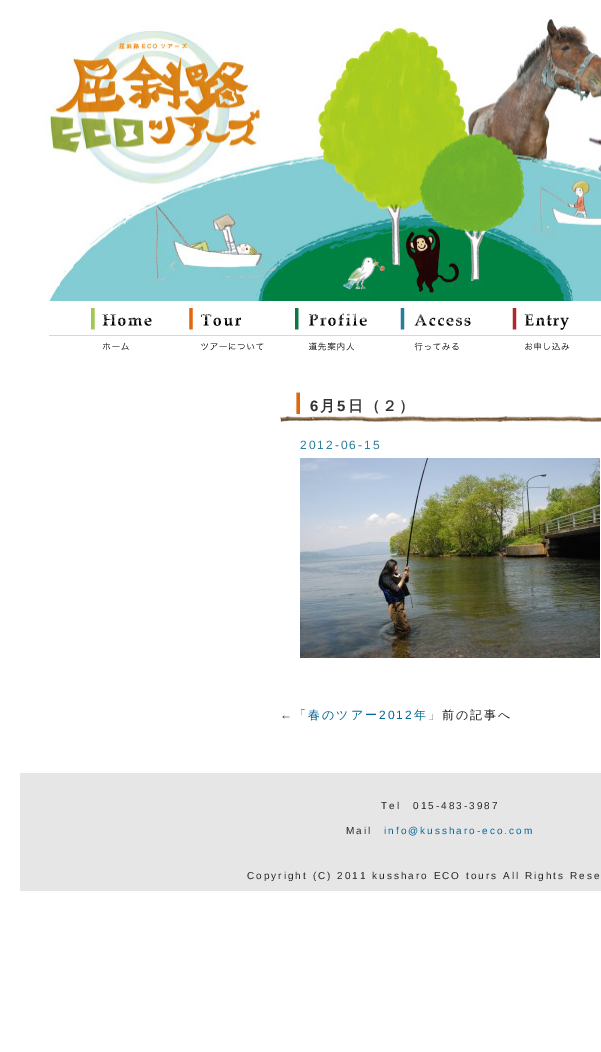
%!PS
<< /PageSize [601 1052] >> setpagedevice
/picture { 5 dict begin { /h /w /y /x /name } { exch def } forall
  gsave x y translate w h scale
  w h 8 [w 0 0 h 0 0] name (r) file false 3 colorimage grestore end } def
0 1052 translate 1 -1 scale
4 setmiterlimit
1 setgray
0 0 601 1052 rectfill
(img1.rgb) 44 16 557 285 picture
(img2.rgb) 49 302 140 48 picture
(img3.rgb) 189 308 106 42 picture
(img4.rgb) 295 308 105 43 picture
(img5.rgb) 400 308 112 43 picture
(img6.rgb) 512 307 89 44 picture
(img7.rgb) 280 392 321 30 picture
/LiberationSans-Bold [15 0 0 -15 0 0] selectfont
0.2 setgray
310 411 moveto 2 0 (6) ashow
/WenQuanYiZenHei-Bold [15 0 0 -15 0 0] selectfont
320 411 moveto 2 0 (月) ashow
/LiberationSans-Bold [15 0 0 -15 0 0] selectfont
337 411 moveto 2 0 (5) ashow
/WenQuanYiZenHei-Bold [15 0 0 -15 0 0] selectfont
348 411 moveto 2 0 (日（２）) ashow
/LiberationSans-Regular [12 0 0 -12 0 0] selectfont
0.173 0.494 0.608 setrgbcolor
300 449 moveto 2 0 (2012-06-15) ashow
(img8.rgb) 300 458 300 200 picture
0.145 setgray
280 719 moveto 2 0 (←) ashow
/WenQuanYiZenHei-Medium [12 0 0 -12 0 0] selectfont
294 719 moveto 2 0 (「) ashow
0 0.408 0.596 setrgbcolor
308 719 moveto 2 0 (春のツアー) ashow
/LiberationSans-Regular [12 0 0 -12 0 0] selectfont
379 719 moveto 2 0 (2012) ashow
/WenQuanYiZenHei-Medium [12 0 0 -12 0 0] selectfont
414 719 moveto 2 0 (年) ashow
0.145 setgray
428 719 moveto 2 0 (」前の記事へ) ashow
0.902 setgray
20 773 581 118 rectfill
/LiberationSans-Regular [10 0 0 -10 0 0] selectfont
0.145 setgray
381 809 moveto 2 0 (Tel) ashow
413 809 moveto 2 0 (015-483-3987) ashow
346 834 moveto 2 0 (Mail) ashow
0 0.408 0.596 setrgbcolor
384 834 moveto 2 0 (info@kussharo-eco.com) ashow
0.145 setgray
247 879 moveto 2 0 (Copyright \(C\) 2011 kussharo ECO tours All Rights Rese) ashow
showpage
